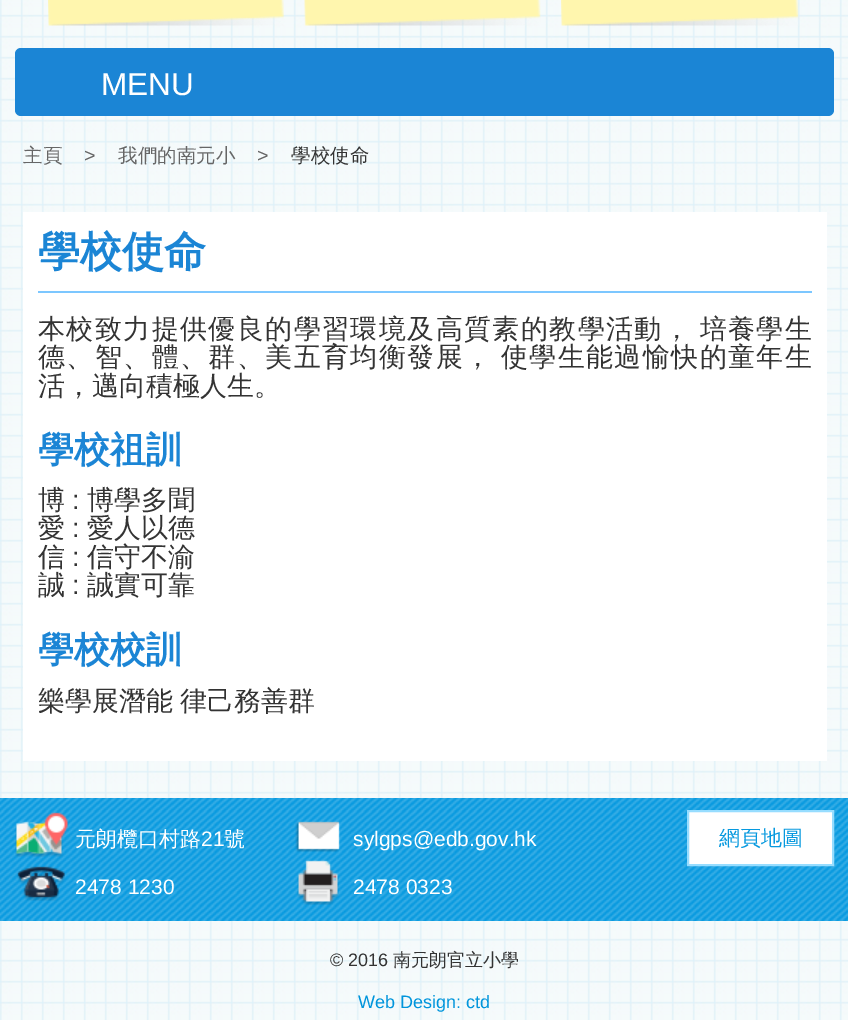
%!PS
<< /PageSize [848 1020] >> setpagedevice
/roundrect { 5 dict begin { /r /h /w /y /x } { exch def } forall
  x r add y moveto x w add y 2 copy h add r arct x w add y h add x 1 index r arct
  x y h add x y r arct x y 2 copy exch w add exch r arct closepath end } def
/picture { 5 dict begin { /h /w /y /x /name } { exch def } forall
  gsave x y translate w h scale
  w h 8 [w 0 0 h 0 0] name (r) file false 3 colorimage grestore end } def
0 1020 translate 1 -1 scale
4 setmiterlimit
1 setgray
0 0 848 1020 rectfill
(img1.rgb) 0 0 848 1020 picture
(img2.rgb) 48 0 236 26 picture
(img3.rgb) 304 0 237 26 picture
(img4.rgb) 561 0 238 26 picture
0.106 0.522 0.835 setrgbcolor
15 48 819 68 6 roundrect fill
/LiberationSans-Regular [31.5 0 0 -31.5 0 0] selectfont
1 setgray
101 95 moveto (MENU) show
/WenQuanYiZenHei-Medium [19.5 0 0 -19.5 0 0] selectfont
0.4 setgray
23 162 moveto (主頁) show
/LiberationSans-Regular [19.5 0 0 -19.5 0 0] selectfont
84 162 moveto (>) show
/WenQuanYiZenHei-Medium [19.5 0 0 -19.5 0 0] selectfont
118 162 moveto (我們的南元小) show
/LiberationSans-Regular [19.5 0 0 -19.5 0 0] selectfont
257 162 moveto (>) show
/WenQuanYiZenHei-Medium [19.5 0 0 -19.5 0 0] selectfont
0.2 setgray
291 162 moveto (學校使命) show
1 setgray
23 212 804 549 rectfill
0.486 0.78 1 setrgbcolor
38 291 774 2 rectfill
/WenQuanYiZenHei-Bold [42 0 0 -42 0 0] selectfont
0.106 0.522 0.835 setrgbcolor
38 266 moveto (學校使命) show
/WenQuanYiZenHei-Medium [27 0 0 -27 0 0] selectfont
0.2 setgray
38 338 moveto -1 0 32 1.4 0 (本校致力提供優良的學習環境及高質素的教學活動， 培養學生) awidthshow
38 366 moveto -1 0 32 1.4 0 (德、智、體、群、美五育均衡發展， 使學生能過愉快的童年生) awidthshow
38 395 moveto (活，邁向積極人生。) show
/WenQuanYiZenHei-Bold [36 0 0 -36 0 0] selectfont
0.106 0.522 0.835 setrgbcolor
38 462 moveto (學校祖訓) show
/WenQuanYiZenHei-Medium [27 0 0 -27 0 0] selectfont
0.2 setgray
38 509 moveto (博) show
/LiberationSans-Regular [27 0 0 -27 0 0] selectfont
72 509 moveto (:) show
/WenQuanYiZenHei-Medium [27 0 0 -27 0 0] selectfont
87 509 moveto (博學多聞) show
38 537 moveto (愛) show
/LiberationSans-Regular [27 0 0 -27 0 0] selectfont
72 537 moveto (:) show
/WenQuanYiZenHei-Medium [27 0 0 -27 0 0] selectfont
87 537 moveto (愛人以德) show
38 566 moveto (信) show
/LiberationSans-Regular [27 0 0 -27 0 0] selectfont
72 566 moveto (:) show
/WenQuanYiZenHei-Medium [27 0 0 -27 0 0] selectfont
87 566 moveto (信守不渝) show
38 594 moveto (誠) show
/LiberationSans-Regular [27 0 0 -27 0 0] selectfont
72 594 moveto (:) show
/WenQuanYiZenHei-Medium [27 0 0 -27 0 0] selectfont
87 594 moveto (誠實可靠) show
/WenQuanYiZenHei-Bold [36 0 0 -36 0 0] selectfont
0.106 0.522 0.835 setrgbcolor
38 662 moveto (學校校訓) show
/WenQuanYiZenHei-Medium [27 0 0 -27 0 0] selectfont
0.2 setgray
38 710 moveto -1 0 32 (樂學展潛能 律己務善群) widthshow
0.024 0.6 0.875 setrgbcolor
0 798 848 123 rectfill
(img5.rgb) 0 798 848 123 picture
(img6.rgb) 15 812 53 45 picture
/WenQuanYiZenHei-Medium [21 0 0 -21 0 0] selectfont
1 setgray
75 846 moveto (元朗欖口村路) show
/LiberationSans-Regular [21 0 0 -21 0 0] selectfont
201 846 moveto (21) show
/WenQuanYiZenHei-Medium [21 0 0 -21 0 0] selectfont
224 846 moveto (號) show
(img7.rgb) 295 821 45 31 picture
/LiberationSans-Regular [21 0 0 -21 0 0] selectfont
353 846 moveto (sylgps@edb.gov.hk) show
(img8.rgb) 17 866 48 35 picture
75 894 moveto (2478 1230) show
(img9.rgb) 297 860 42 45 picture
353 894 moveto (2478 0323) show
newpath 688 811 moveto 833 811 lineto 833 865 lineto 688 865 lineto closepath gsave fill grestore
0.592 0.867 1 setrgbcolor
2 setlinewidth
stroke
/WenQuanYiZenHei-Medium [21 0 0 -21 0 0] selectfont
0.024 0.6 0.875 setrgbcolor
719 845 moveto (網頁地圖) show
/LiberationSans-Regular [18 0 0 -18 0 0] selectfont
0.2 setgray
330 966 moveto (© 2016) show
/WenQuanYiZenHei-Medium [18 0 0 -18 0 0] selectfont
393 966 moveto (南元朗官立小學) show
/LiberationSans-Regular [18 0 0 -18 0 0] selectfont
0 0.584 0.863 setrgbcolor
358 1008 moveto (Web Design: ctd) show
showpage
